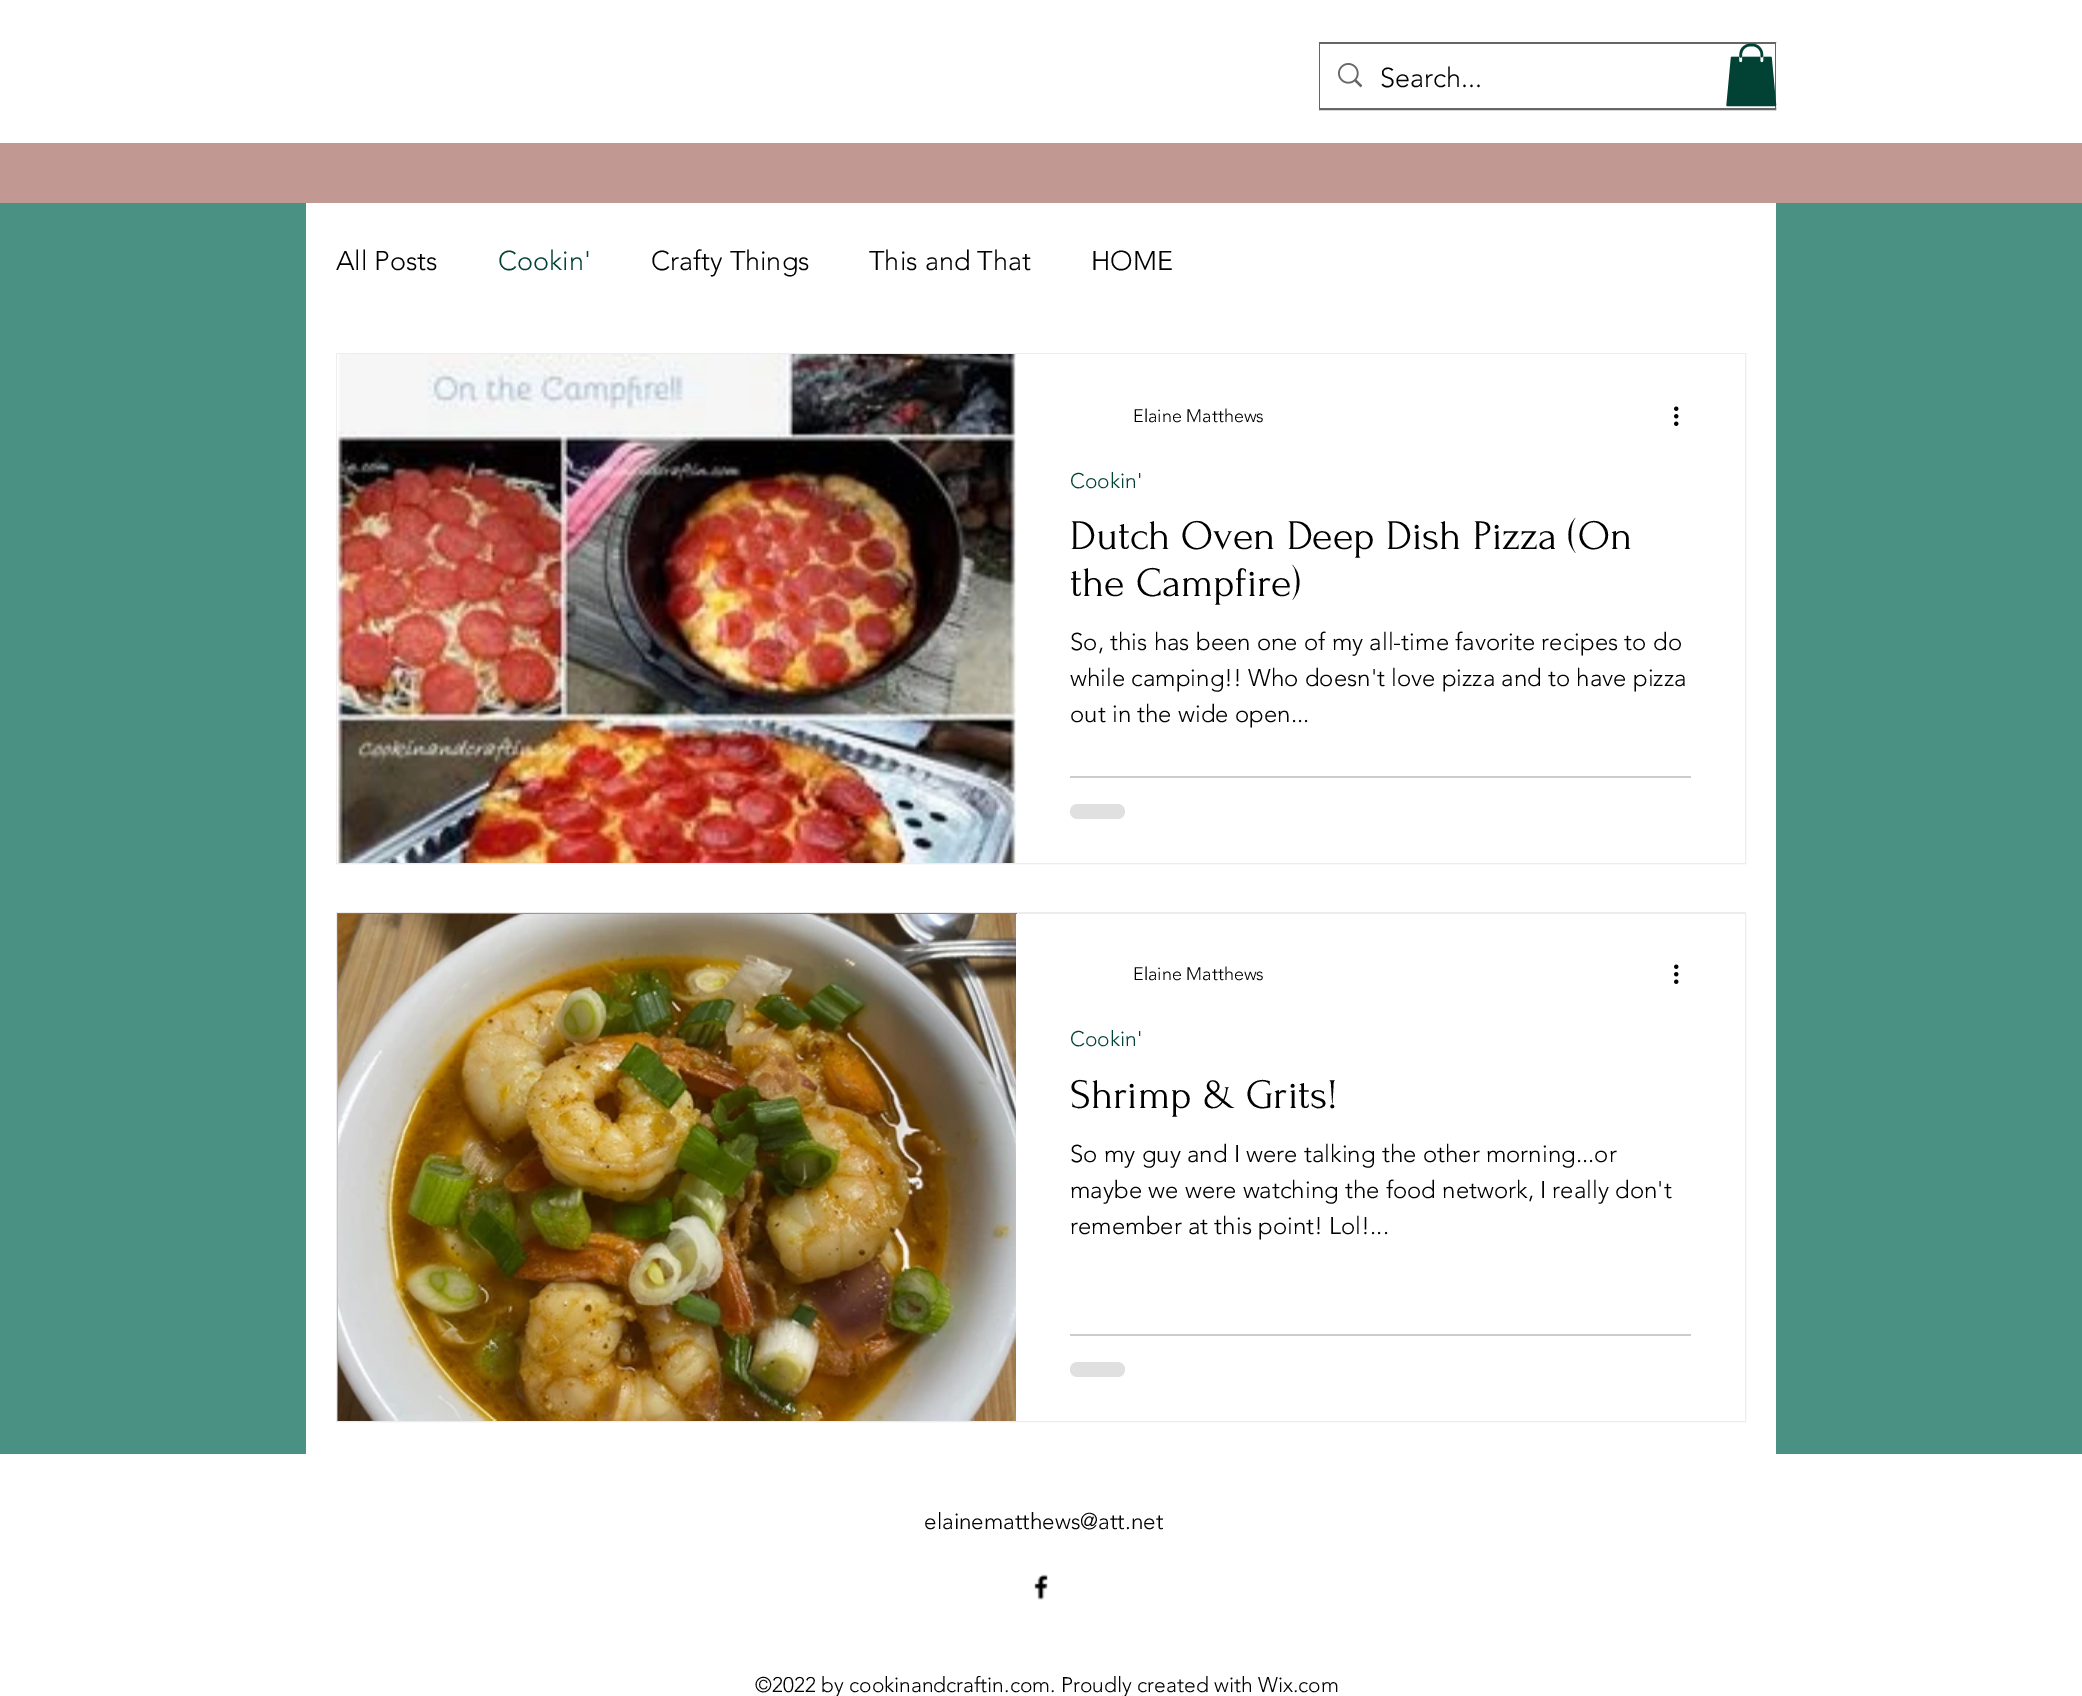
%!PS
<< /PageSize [2082 1696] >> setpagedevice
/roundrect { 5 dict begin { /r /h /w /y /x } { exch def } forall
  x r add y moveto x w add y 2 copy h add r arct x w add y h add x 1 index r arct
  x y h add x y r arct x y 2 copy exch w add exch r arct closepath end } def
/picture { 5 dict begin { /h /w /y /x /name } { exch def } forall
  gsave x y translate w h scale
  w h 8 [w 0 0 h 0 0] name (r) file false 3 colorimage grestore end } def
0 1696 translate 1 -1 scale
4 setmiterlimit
0.29 0.569 0.514 setrgbcolor
0 0 2082 1696 rectfill
1 setgray
0 0 2082 143 rectfill
0.4 setgray
2 setlinewidth
1320 43 455 66 rectstroke
1 setgray
1320 44 455 64 rectfill
(img1.rgb) 1338 63 24 25 picture
/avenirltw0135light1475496-Light [27 0 0 -27 0 0] selectfont
0 setgray
1380 87 moveto (Search...) show
(img2.rgb) 1726 43 51 64 picture
0.761 0.6 0.573 setrgbcolor
0 143 2082 60 rectfill
1 setgray
306 203 1470 1251 rectfill
0 setgray
336 270 moveto (All Posts) show
0.004 0.259 0.208 setrgbcolor
498 270 moveto (Cookin') show
0 setgray
651 270 moveto (Crafty Things) show
869 270 moveto (This and That) show
1091 270 moveto (HOME) show
0.933 0.925 0.925 setrgbcolor
337 354 1408 509 rectstroke
(img3.rgb) 337 354 679 509 picture
1 setgray
1016 354 729 509 rectfill
/avenirltw0135light1475496-Light [18 0 0 -18 0 0] selectfont
0 setgray
1133 422 moveto (Elaine Matthews) show
(img4.rgb) 1674 406 5 20 picture
/avenirltw0135light1475496-Light [21 0 0 -21 0 0] selectfont
0.004 0.259 0.208 setrgbcolor
1070 488 moveto (Cookin') show
/Forum-Regular [42 0 0 -42 0 0] selectfont
0 setgray
1070 549 moveto (Dutch Oven Deep Dish Pizza \(On) show
1070 596 moveto (the Campfire\)) show
/avenirltw0135light1475496-Light [24 0 0 -24 0 0] selectfont
1070 650 moveto (So, this has been one of my all-time favorite recipes to do) show
1070 686 moveto (while camping!! Who doesn't love pizza and to have pizza) show
1070 722 moveto (out in the wide open...) show
0.8 setgray
1070 776 621 2 rectfill
0.878 setgray
1070 804 55 15 7.5 roundrect fill
0.933 0.925 0.925 setrgbcolor
337 913 1408 508 rectstroke
(img5.rgb) 337 913 680 508 picture
(img6.rgb) 338 914 678 507 picture
1 setgray
1016 914 729 507 rectfill
/avenirltw0135light1475496-Light [18 0 0 -18 0 0] selectfont
0 setgray
1133 980 moveto (Elaine Matthews) show
(img4.rgb) 1674 964 5 20 picture
/avenirltw0135light1475496-Light [21 0 0 -21 0 0] selectfont
0.004 0.259 0.208 setrgbcolor
1070 1046 moveto (Cookin') show
/Forum-Regular [42 0 0 -42 0 0] selectfont
0 setgray
1070 1108 moveto (Shrimp & Grits!) show
/avenirltw0135light1475496-Light [24 0 0 -24 0 0] selectfont
1070 1162 moveto (So my guy and I were talking the other morning...or) show
1070 1198 moveto (maybe we were watching the food network, I really don't) show
1070 1234 moveto (remember at this point! Lol!...) show
0.8 setgray
1070 1334 621 2 rectfill
0.878 setgray
1070 1362 55 15 7.5 roundrect fill
1 setgray
0 1454 2082 242 rectfill
/avenirltw0135light1475496-Light [22.5 0 0 -22.5 0 0] selectfont
0 setgray
924 1529 moveto (elainematthews@att.net) show
(img7.rgb) 1034 1574 14 26 picture
/avenirltw0135light1475496-Light [21 0 0 -21 0 0] selectfont
755 1692 moveto (©2022 by cookinandcraftin.com. Proudly created with Wix.com) show
showpage
